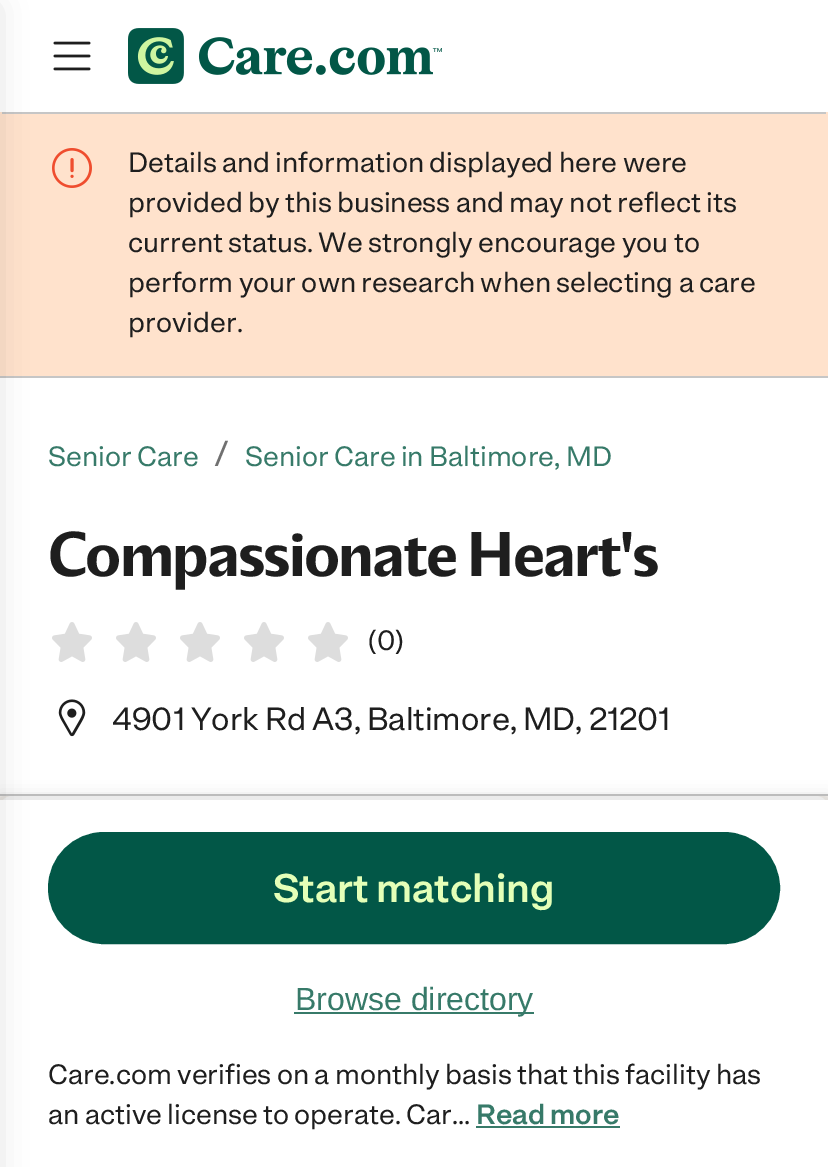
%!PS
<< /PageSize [828 1167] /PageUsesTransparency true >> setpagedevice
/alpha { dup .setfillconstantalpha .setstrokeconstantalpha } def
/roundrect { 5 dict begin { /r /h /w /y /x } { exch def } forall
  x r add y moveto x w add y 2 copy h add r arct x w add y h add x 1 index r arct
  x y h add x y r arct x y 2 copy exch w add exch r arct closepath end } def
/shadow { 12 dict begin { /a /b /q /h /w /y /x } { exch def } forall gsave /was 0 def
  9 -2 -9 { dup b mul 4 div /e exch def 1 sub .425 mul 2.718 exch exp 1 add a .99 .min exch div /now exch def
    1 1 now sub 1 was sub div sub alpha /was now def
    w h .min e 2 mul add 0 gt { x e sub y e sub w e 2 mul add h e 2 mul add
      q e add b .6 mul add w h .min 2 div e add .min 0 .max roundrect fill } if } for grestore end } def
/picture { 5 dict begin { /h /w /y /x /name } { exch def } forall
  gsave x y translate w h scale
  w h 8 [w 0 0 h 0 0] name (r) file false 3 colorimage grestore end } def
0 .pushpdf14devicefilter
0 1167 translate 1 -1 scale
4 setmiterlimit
1 setgray
0 0 828 1167 rectfill
0.965 0.953 0.933 setrgbcolor
0 796 828 4 rectfill
1 0.886 0.8 setrgbcolor
0 112 828 264 rectfill
0.776 setgray
2 112 824 2 rectfill
0 376 828 2 rectfill
0 794 828 2 rectfill
1 setgray
newpath 12 796 moveto 816 796 lineto 822.5 796 828 801.5 828 808 curveto 828 900 lineto 0 900 lineto 0 808 lineto 0 801.5 5.5 796 12 796 curveto closepath fill
0 setgray
0 798 828 368 0 8 0.15 shadow
1 setgray
0 800 828 367 rectfill
0 setgray
-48 8 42 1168 0 16 0.15 shadow
(img1.rgb) 53 41 38 30 picture
(img2.rgb) 128 28 314 56 picture
(img3.rgb) 52 148 40 40 picture
/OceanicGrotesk-Regular [28 0 0 -28 0 0] selectfont
0.118 setgray
128 172 moveto (Details and information displayed here were) show
128 212 moveto (provided by this business and may not reflect its) show
128 252 moveto (current status. We strongly encourage you to) show
128 292 moveto (perform your own research when selecting a care) show
128 332 moveto (provider.) show
0.216 0.478 0.412 setrgbcolor
48 466 moveto (Senior Care) show
/OceanicGrotesk-Regular [36 0 0 -36 0 0] selectfont
0.439 setgray
214 466 moveto (/) show
/OceanicGrotesk-Regular [28 0 0 -28 0 0] selectfont
0.216 0.478 0.412 setrgbcolor
245 466 moveto (Senior Care in Baltimore, MD) show
/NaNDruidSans-Medium [64 0 0 -64 0 0] selectfont
0.118 setgray
48 576 moveto -1.9 0 (Compassionate Heart's) ashow
(img4.rgb) 52 622 40 40 picture
(img4.rgb) 116 622 40 40 picture
(img4.rgb) 180 622 40 40 picture
(img4.rgb) 244 622 40 40 picture
(img4.rgb) 308 622 40 40 picture
/OceanicGrotesk-Regular [28 0 0 -28 0 0] selectfont
368 650 moveto (\(0\)) show
(img5.rgb) 58 699 28 38 picture
/OceanicGrotesk-Regular [32 0 0 -32 0 0] selectfont
112 730 moveto (4901 York Rd A3, Baltimore, MD, 21201) show
0.008 0.341 0.278 setrgbcolor
49 833 730 110 55 roundrect gsave fill grestore
2 setlinewidth
stroke
/OceanicGrotesk-Medium [40 0 0 -40 0 0] selectfont
0.894 1 0.722 setrgbcolor
273 902 moveto (Start matching) show
0.216 0.478 0.412 setrgbcolor
294 1012 240 2 rectfill
/LiberationSans-Regular [32 0 0 -32 0 0] selectfont
295 1010 moveto (Browse directory) show
/OceanicGrotesk-Regular [28 0 0 -28 0 0] selectfont
0.118 setgray
48 1084 moveto (Care.com verifies on a monthly basis that this facility has) show
48 1124 moveto (an active license to operate. Car…) show
/OceanicGrotesk-Medium [28 0 0 -28 0 0] selectfont
0.216 0.478 0.412 setrgbcolor
476 1124 moveto (Read more) show
476 1126 144 2 rectfill
.poppdf14devicefilter showpage
